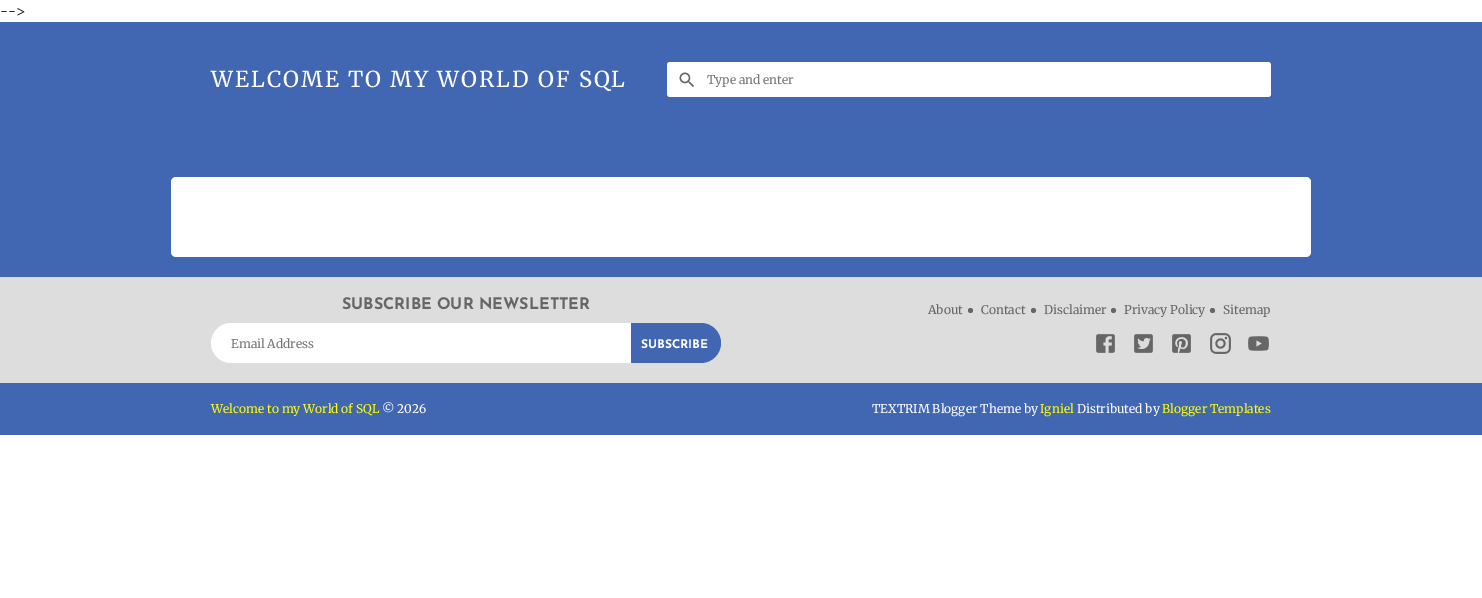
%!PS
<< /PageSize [1482 598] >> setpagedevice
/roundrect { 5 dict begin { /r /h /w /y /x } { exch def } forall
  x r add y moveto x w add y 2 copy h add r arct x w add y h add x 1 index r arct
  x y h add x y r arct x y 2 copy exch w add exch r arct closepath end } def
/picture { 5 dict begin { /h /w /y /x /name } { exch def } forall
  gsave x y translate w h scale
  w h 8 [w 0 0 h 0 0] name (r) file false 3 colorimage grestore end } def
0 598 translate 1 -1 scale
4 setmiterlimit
1 setgray
0 0 1482 598 rectfill
/Merriweather-Light [14 0 0 -14 0 0] selectfont
0.149 0.157 0.165 setrgbcolor
0 16 moveto (-->) show
0.259 0.404 0.698 setrgbcolor
0 22 1482 255 rectfill
/Merriweather-Light [22 0 0 -22 0 0] selectfont
1 setgray
211 87 moveto 2 0 (WELCOME TO MY WORLD OF SQL) ashow
667 62 604 35 3 roundrect fill
(img1.rgb) 679 72 15 15 picture
/Merriweather-Light [12 0 0 -12 0 0] selectfont
0.459 setgray
707 84 moveto (Type and enter) show
1 setgray
171 177 1140 80 5 roundrect fill
0.867 setgray
0 277 1482 106 rectfill
/JosefinSans-Thin [16 0 0 -16 0 0] selectfont
0.4 setgray
342 309 moveto (SUBSCRIBE OUR NEWSLETTER) show
1 setgray
newpath 231 323 moveto 631 323 lineto 631 363 lineto 231 363 lineto 220 363 211 354 211 343 curveto 211 332 220 323 231 323 curveto closepath fill
/Merriweather-Light [12 0 0 -12 0 0] selectfont
0.459 setgray
231 348 moveto (Email Address) show
0.259 0.404 0.698 setrgbcolor
newpath 631 323 moveto 701 323 lineto 712 323 721 332 721 343 curveto 721 354 712 363 701 363 curveto 631 363 lineto closepath fill
/JosefinSans-Thin [12 0 0 -12 0 0] selectfont
1 setgray
641 348 moveto (SUBSCRIBE) show
/Merriweather-Light [12 0 0 -12 0 0] selectfont
0.4 setgray
928 314 moveto (About) show
newpath 970.5 310.5 2.5 0 360 arc closepath fill
981 314 moveto (Contact) show
newpath 1033.5 310.5 2.5 0 360 arc closepath fill
1044 314 moveto (Disclaimer) show
newpath 1113.5 310.5 2.5 0 360 arc closepath fill
1124 314 moveto (Privacy Policy) show
newpath 1212.5 310.5 2.5 0 360 arc closepath fill
1223 314 moveto (Sitemap) show
(img2.rgb) 1096 334 19 19 picture
(img3.rgb) 1134 334 19 19 picture
(img4.rgb) 1172 334 19 19 picture
(img5.rgb) 1210 333 21 21 picture
(img6.rgb) 1248 336 21 15 picture
0.259 0.404 0.698 setrgbcolor
0 383 1482 52 rectfill
1 1 0 setrgbcolor
211 413 moveto (Welcome to my World of SQL) show
1 setgray
382 413 moveto (© 2026) show
872 413 moveto (TEXTRIM Blogger Theme by) show
1 1 0 setrgbcolor
1040 413 moveto (Igniel) show
1 setgray
1077 413 moveto (Distributed by) show
1 1 0 setrgbcolor
1162 413 moveto (Blogger Templates) show
showpage
